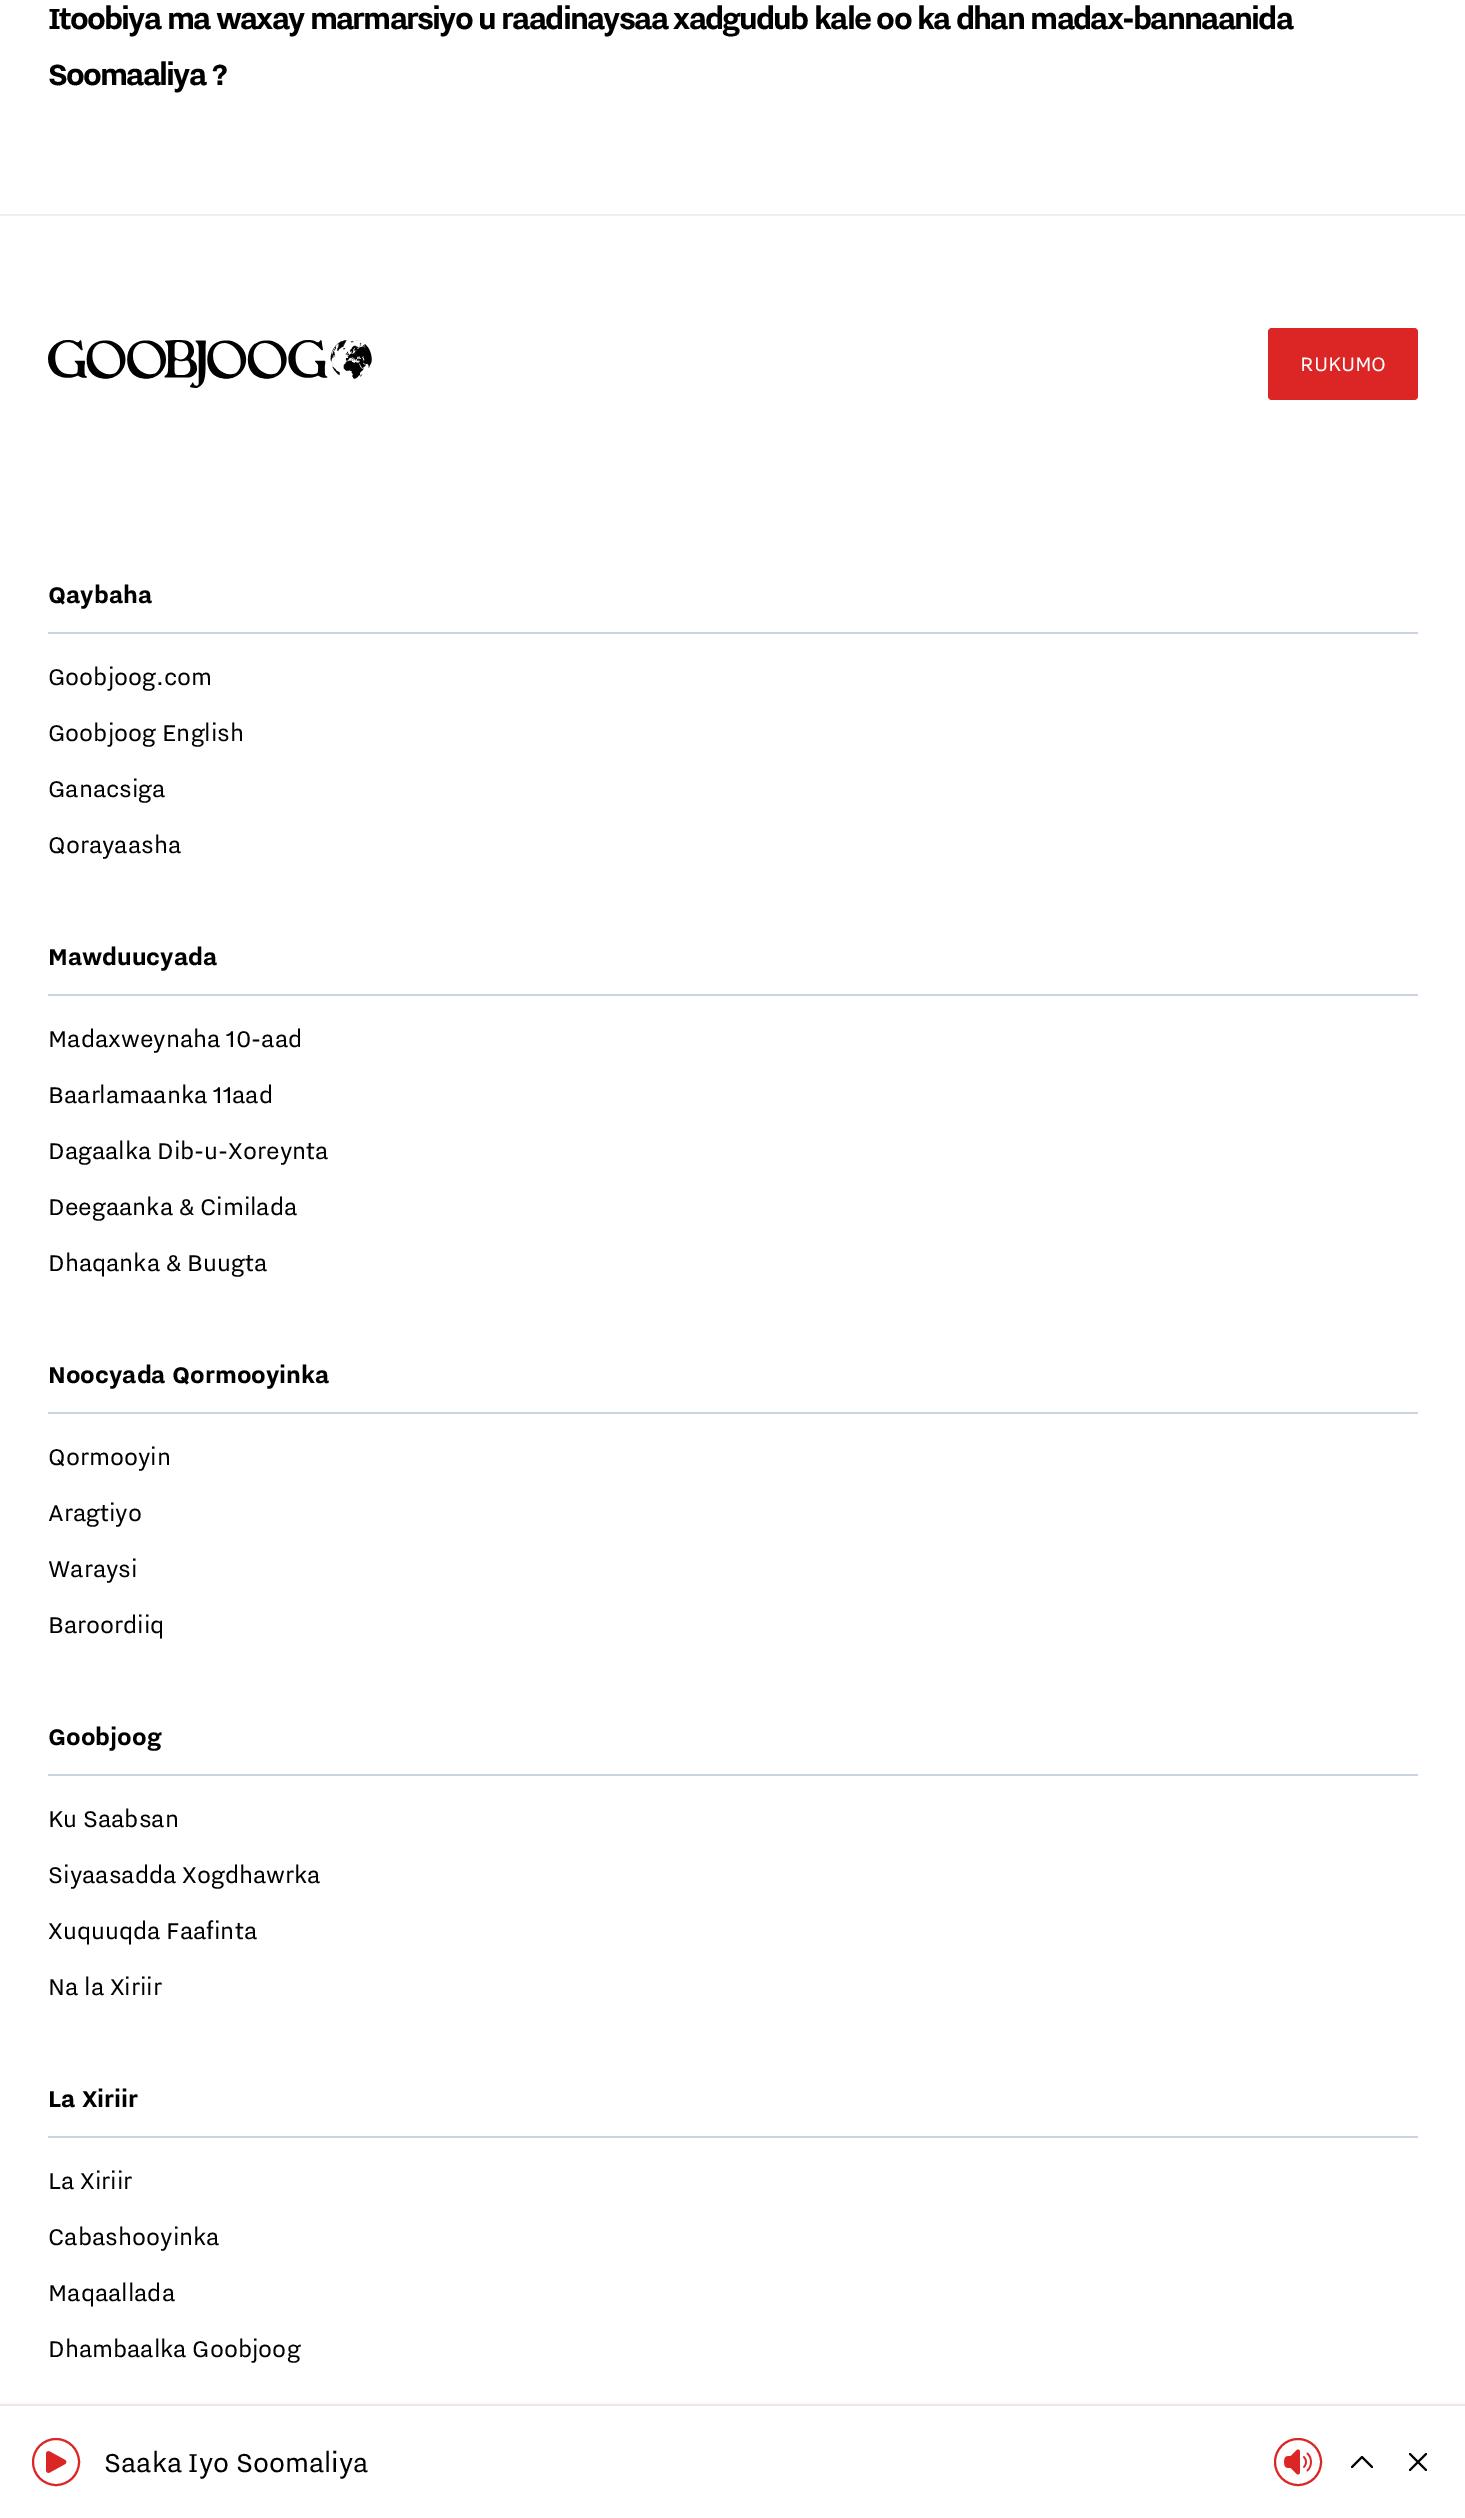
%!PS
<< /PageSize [1465 2518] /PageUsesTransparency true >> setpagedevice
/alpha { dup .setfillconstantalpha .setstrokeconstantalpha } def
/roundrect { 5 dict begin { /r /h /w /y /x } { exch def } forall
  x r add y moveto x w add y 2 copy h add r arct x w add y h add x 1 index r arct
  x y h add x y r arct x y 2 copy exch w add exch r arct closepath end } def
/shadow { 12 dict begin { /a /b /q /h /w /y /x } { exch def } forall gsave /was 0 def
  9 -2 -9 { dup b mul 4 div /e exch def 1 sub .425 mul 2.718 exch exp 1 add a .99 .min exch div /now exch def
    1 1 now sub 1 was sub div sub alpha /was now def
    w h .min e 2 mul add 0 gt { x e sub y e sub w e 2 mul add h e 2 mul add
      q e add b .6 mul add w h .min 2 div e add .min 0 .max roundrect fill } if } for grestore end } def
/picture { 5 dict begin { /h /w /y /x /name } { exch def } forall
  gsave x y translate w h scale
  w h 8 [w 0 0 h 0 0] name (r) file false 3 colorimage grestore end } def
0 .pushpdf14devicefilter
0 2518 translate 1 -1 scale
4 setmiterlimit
1 setgray
0 0 1465 2518 rectfill
/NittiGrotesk-Bold [36 0 0 -36 0 0] selectfont
0 setgray
48 29 moveto -1.8 0 (Itoobiya ma waxay marmarsiyo u raadinaysaa xadgudub kale oo ka dhan madax-bannaanida) ashow
48 85 moveto -1.8 0 (Soomaaliya ?) ashow
0.933 setgray
0 214 1465 2 rectfill
(img1.rgb) 48 340 324 48 picture
0.863 0.149 0.149 setrgbcolor
1268 328 150 72 4 roundrect fill
/NittiGrotesk-Regular [24 0 0 -24 0 0] selectfont
1 setgray
1300 371 moveto (RUKUMO) show
0.796 0.835 0.882 setrgbcolor
48 632 1370 2 rectfill
/NittiGrotesk-Bold [28 0 0 -28 0 0] selectfont
0 setgray
48 603 moveto (Qaybaha) show
/NittiGrotesk-Regular [28 0 0 -28 0 0] selectfont
48 685 moveto (Goobjoog.com) show
48 741 moveto (Goobjoog English) show
48 797 moveto (Ganacsiga) show
48 853 moveto (Qorayaasha) show
0.796 0.835 0.882 setrgbcolor
48 994 1370 2 rectfill
/NittiGrotesk-Bold [28 0 0 -28 0 0] selectfont
0 setgray
48 965 moveto (Mawduucyada) show
/NittiGrotesk-Regular [28 0 0 -28 0 0] selectfont
48 1047 moveto (Madaxweynaha 10-aad) show
48 1103 moveto (Baarlamaanka 11aad) show
48 1159 moveto (Dagaalka Dib-u-Xoreynta) show
48 1215 moveto (Deegaanka & Cimilada) show
48 1271 moveto (Dhaqanka & Buugta) show
0.796 0.835 0.882 setrgbcolor
48 1412 1370 2 rectfill
/NittiGrotesk-Bold [28 0 0 -28 0 0] selectfont
0 setgray
48 1383 moveto (Noocyada Qormooyinka) show
/NittiGrotesk-Regular [28 0 0 -28 0 0] selectfont
48 1465 moveto (Qormooyin) show
48 1521 moveto (Aragtiyo) show
48 1577 moveto (Waraysi) show
48 1633 moveto (Baroordiiq) show
0.796 0.835 0.882 setrgbcolor
48 1774 1370 2 rectfill
/NittiGrotesk-Bold [28 0 0 -28 0 0] selectfont
0 setgray
48 1745 moveto (Goobjoog) show
/NittiGrotesk-Regular [28 0 0 -28 0 0] selectfont
48 1827 moveto (Ku Saabsan) show
48 1883 moveto (Siyaasadda Xogdhawrka) show
48 1939 moveto (Xuquuqda Faafinta) show
48 1995 moveto (Na la Xiriir) show
0.796 0.835 0.882 setrgbcolor
48 2136 1370 2 rectfill
/NittiGrotesk-Bold [28 0 0 -28 0 0] selectfont
0 setgray
48 2107 moveto (La Xiriir) show
/NittiGrotesk-Regular [28 0 0 -28 0 0] selectfont
48 2189 moveto (La Xiriir) show
48 2245 moveto (Cabashooyinka) show
48 2301 moveto (Maqaallada) show
48 2357 moveto (Dhambaalka Goobjoog) show
0.937 0.267 0.267 setrgbcolor
0 2408 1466 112 0 3 0.5 shadow
0.05 alpha
0.067 0.094 0.153 setrgbcolor
2 setlinewidth
-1 2405 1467 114 rectstroke
1 alpha
1 setgray
0 2406 1465 112 rectfill
0.863 0.149 0.149 setrgbcolor
newpath 56 2462 23 0 360 arc closepath stroke
(img2.rgb) 46 2451 21 22 picture
/NittiGrotesk-Regular [32 0 0 -32 0 0] selectfont
0 setgray
104 2472 moveto (Saaka Iyo Soomaliya) show
0.863 0.149 0.149 setrgbcolor
newpath 1298 2462 23 0 360 arc closepath stroke
(img3.rgb) 1284 2449 28 26 picture
0 setgray
1 setlinecap
1 setlinejoin
newpath 1352 2467 moveto 1362 2457 lineto 1372 2467 lineto stroke
newpath 1410 2470 moveto 1426 2454 lineto 1410 2454 moveto 1426 2470 lineto stroke
.poppdf14devicefilter showpage
